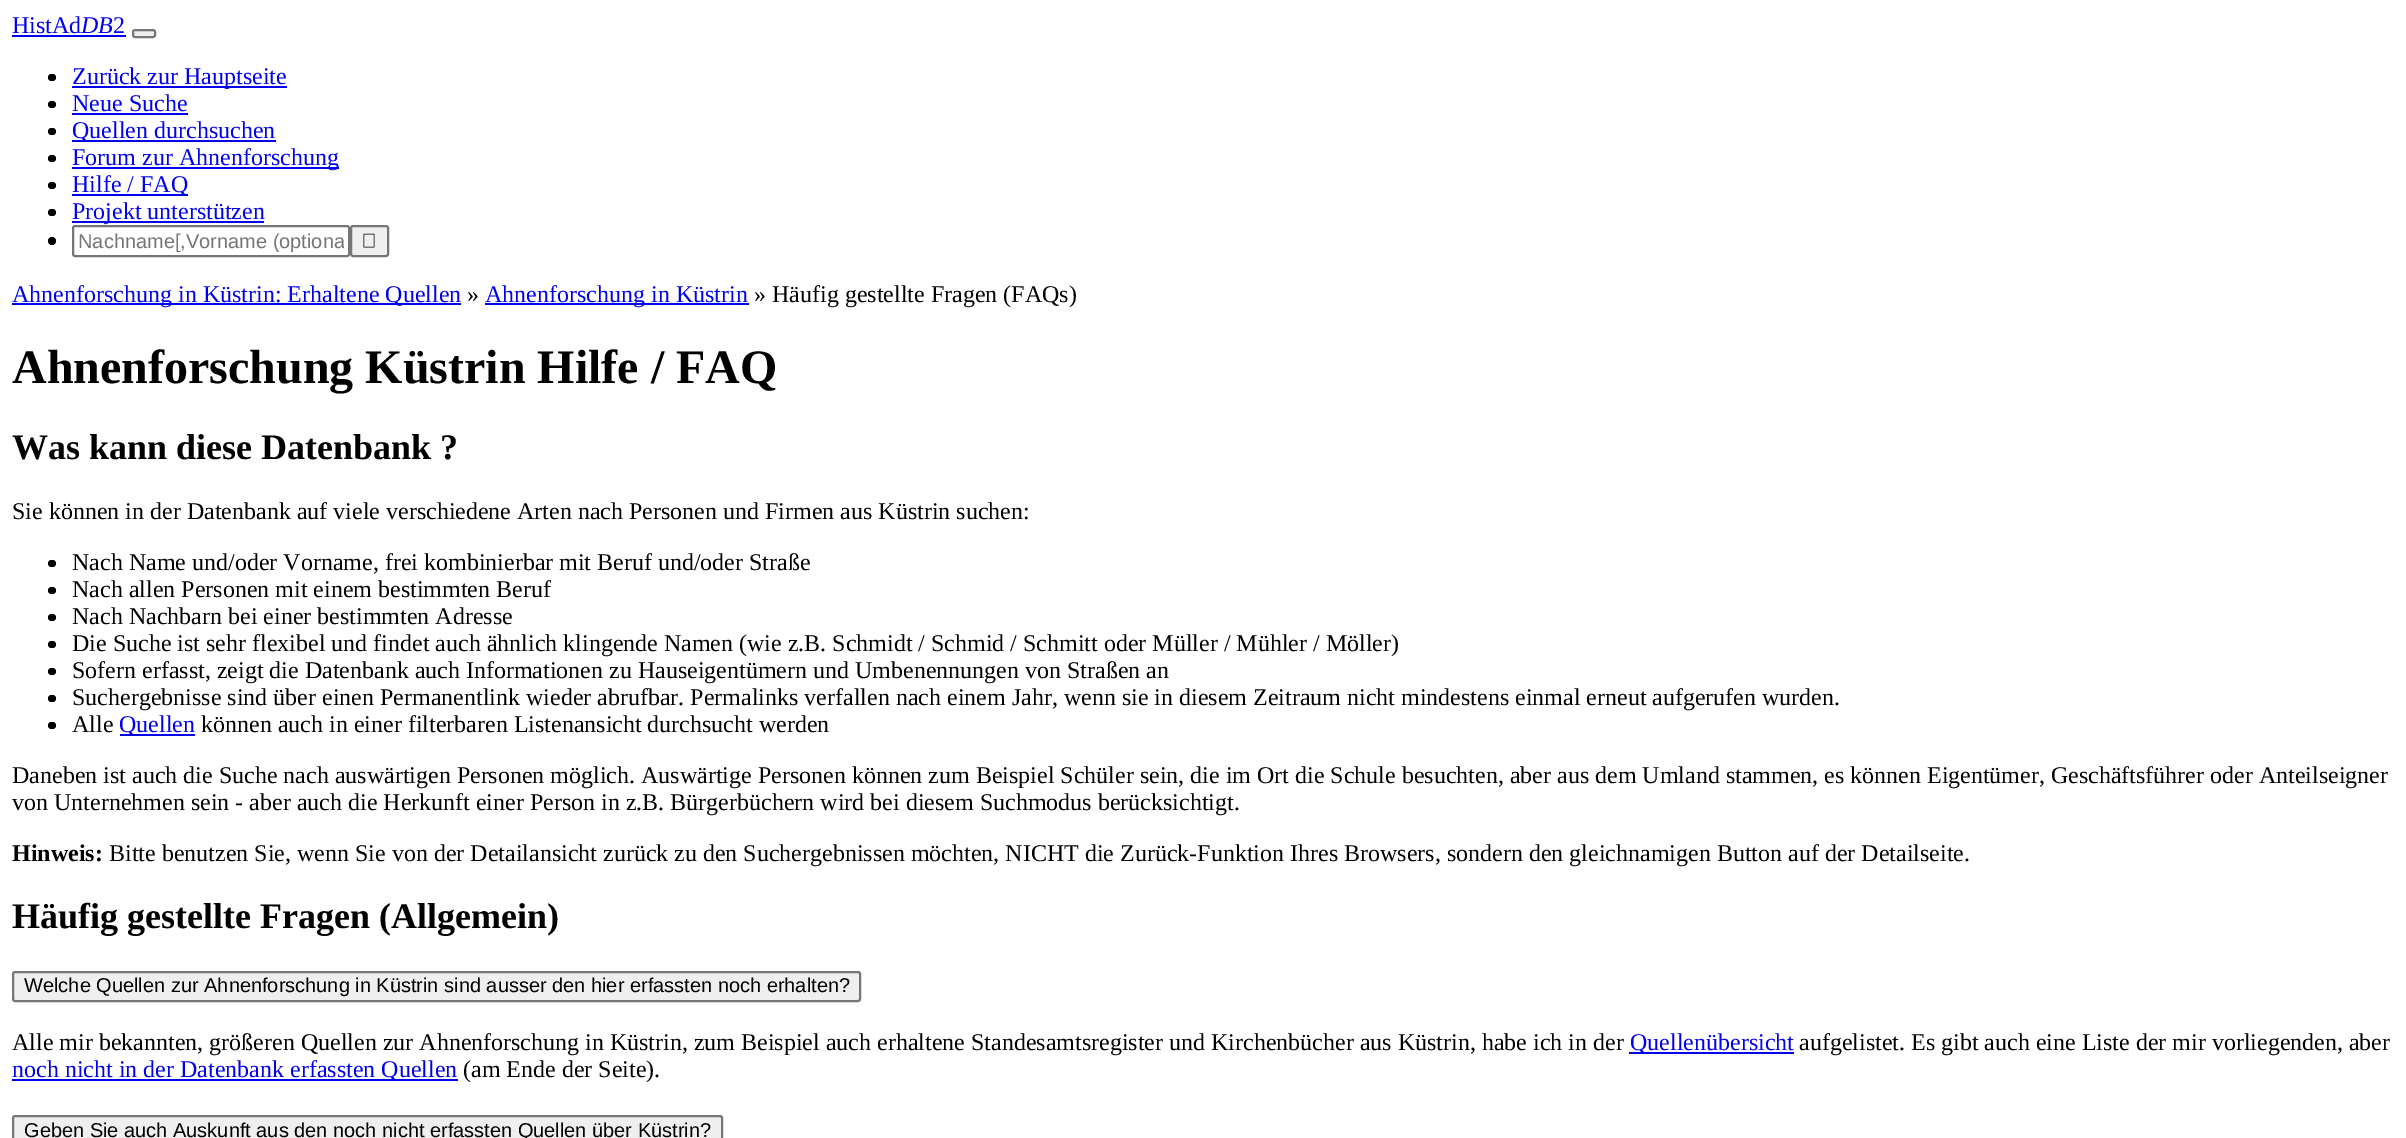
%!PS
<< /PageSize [2406 1138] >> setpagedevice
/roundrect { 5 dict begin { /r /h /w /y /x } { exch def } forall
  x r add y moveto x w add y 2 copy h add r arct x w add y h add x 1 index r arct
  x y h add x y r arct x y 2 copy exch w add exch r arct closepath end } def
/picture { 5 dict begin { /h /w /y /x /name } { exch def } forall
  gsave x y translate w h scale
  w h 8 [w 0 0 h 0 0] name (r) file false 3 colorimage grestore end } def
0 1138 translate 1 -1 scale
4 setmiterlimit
1 setgray
0 0 2406 1138 rectfill
/LiberationSerif-Regular [24 0 0 -24 0 0] selectfont
0 0 0.933 setrgbcolor
12 33 moveto (HistAd) show
/LiberationSerif-Italic [24 0 0 -24 0 0] selectfont
81 33 moveto (DB) show
12 35 114 2 rectfill
/LiberationSerif-Regular [24 0 0 -24 0 0] selectfont
113 33 moveto (2) show
0.937 setgray
133 30 22 7 2 roundrect gsave fill grestore
0.463 setgray
2 setlinewidth
stroke
0 setgray
48 74 8 7 3.5 roundrect fill
0 0 0.933 setrgbcolor
72 86 215 2 rectfill
72 84 moveto (Zurück zur Hauptseite) show
0 setgray
48 101 8 7 3.5 roundrect fill
0 0 0.933 setrgbcolor
72 111 moveto (Neue Suche) show
72 113 116 2 rectfill
0 setgray
48 128 8 7 3.5 roundrect fill
0 0 0.933 setrgbcolor
72 140 204 2 rectfill
72 138 moveto (Quellen durchsuchen) show
0 setgray
48 155 8 7 3.5 roundrect fill
0 0 0.933 setrgbcolor
72 167 267 2 rectfill
72 165 moveto (Forum zur Ahnenforschung) show
0 setgray
48 182 8 7 3.5 roundrect fill
0 0 0.933 setrgbcolor
72 194 116 2 rectfill
72 192 moveto (Hilfe / FAQ) show
0 setgray
48 209 8 7 3.5 roundrect fill
0 0 0.933 setrgbcolor
72 221 192 2 rectfill
72 219 moveto (Projekt unterstützen) show
0 setgray
newpath 52 241 4 0 360 arc closepath fill
0.463 setgray
73 226 276 30 2 roundrect stroke
gsave
78 230 266 22 rectclip
/LiberationSans-Regular [20 0 0 -20 0 0] selectfont
0.459 setgray
78 248 moveto (Nachname[,Vorname \(optiona) show
grestore
0.937 setgray
351 226 37 30 2 roundrect gsave fill grestore
0.463 setgray
stroke
(img1.rgb) 363 233 12 15 picture
0 0 0.933 setrgbcolor
12 303 449 2 rectfill
12 302 moveto (Ahnenforschung in Küstrin: Erhaltene Quellen) show
0 setgray
467 302 moveto (») show
0 0 0.933 setrgbcolor
485 303 264 2 rectfill
485 302 moveto (Ahnenforschung in Küstrin) show
0 setgray
754 302 moveto (» Häufig gestellte Fragen \(FAQs\)) show
/LiberationSerif-Bold [48 0 0 -48 0 0] selectfont
12 383 moveto (Ahnenforschung Küstrin Hilfe / FAQ) show
/LiberationSerif-Bold [36 0 0 -36 0 0] selectfont
12 459 moveto (Was kann diese Datenbank ?) show
/LiberationSerif-Regular [24 0 0 -24 0 0] selectfont
12 519 moveto (Sie können in der Datenbank auf viele verschiedene Arten nach Personen und Firmen aus Küstrin suchen:) show
48 560 8 7 3.5 roundrect fill
72 570 moveto (Nach Name und/oder Vorname, frei kombinierbar mit Beruf und/oder Straße) show
48 587 8 7 3.5 roundrect fill
72 597 moveto (Nach allen Personen mit einem bestimmten Beruf) show
48 614 8 7 3.5 roundrect fill
72 624 moveto (Nach Nachbarn bei einer bestimmten Adresse) show
48 641 8 7 3.5 roundrect fill
72 651 moveto (Die Suche ist sehr flexibel und findet auch ähnlich klingende Namen \(wie z.B. Schmidt / Schmid / Schmitt oder Müller / Mühler / Möller\)) show
48 668 8 7 3.5 roundrect fill
72 678 moveto (Sofern erfasst, zeigt die Datenbank auch Informationen zu Hauseigentümern und Umbenennungen von Straßen an) show
48 695 8 7 3.5 roundrect fill
72 705 moveto (Suchergebnisse sind über einen Permanentlink wieder abrufbar. Permalinks verfallen nach einem Jahr, wenn sie in diesem Zeitraum nicht mindestens einmal erneut aufgerufen wurden.) show
48 722 8 7 3.5 roundrect fill
72 732 moveto (Alle) show
0 0 0.933 setrgbcolor
120 734 75 2 rectfill
119 732 moveto (Quellen) show
0 setgray
201 732 moveto (können auch in einer filterbaren Listenansicht durchsucht werden) show
12 783 moveto (Daneben ist auch die Suche nach auswärtigen Personen möglich. Auswärtige Personen können zum Beispiel Schüler sein, die im Ort die Schule besuchten, aber aus dem Umland stammen, es können Eigentümer, Geschäftsführer oder Anteilseigner) show
12 810 moveto (von Unternehmen sein - aber auch die Herkunft einer Person in z.B. Bürgerbüchern wird bei diesem Suchmodus berücksichtigt.) show
/LiberationSerif-Bold [24 0 0 -24 0 0] selectfont
12 861 moveto (Hinweis:) show
/LiberationSerif-Regular [24 0 0 -24 0 0] selectfont
109 861 moveto (Bitte benutzen Sie, wenn Sie von der Detailansicht zurück zu den Suchergebnissen möchten, NICHT die Zurück-Funktion Ihres Browsers, sondern den gleichnamigen Button auf der Detailseite.) show
/LiberationSerif-Bold [36 0 0 -36 0 0] selectfont
12 928 moveto (Häufig gestellte Fragen \(Allgemein\)) show
0.937 setgray
13 972 847 29 2 roundrect gsave fill grestore
0.463 setgray
stroke
/LiberationSans-Regular [20 0 0 -20 0 0] selectfont
0 setgray
24 992 moveto (Welche Quellen zur Ahnenforschung in Küstrin sind ausser den hier erfassten noch erhalten?) show
/LiberationSerif-Regular [24 0 0 -24 0 0] selectfont
12 1050 moveto (Alle mir bekannten, größeren Quellen zur Ahnenforschung in Küstrin, zum Beispiel auch erhaltene Standesamtsregister und Kirchenbücher aus Küstrin, habe ich in der) show
0 0 0.933 setrgbcolor
1629 1052 165 2 rectfill
1630 1050 moveto (Quellenübersicht) show
0 setgray
1799 1050 moveto (aufgelistet. Es gibt auch eine Liste der mir vorliegenden, aber) show
0 0 0.933 setrgbcolor
12 1079 446 2 rectfill
12 1077 moveto (noch nicht in der Datenbank erfassten Quellen) show
0 setgray
463 1077 moveto (\(am Ende der Seite\).) show
0.937 setgray
13 1116 709 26 2 roundrect gsave fill grestore
0.463 setgray
stroke
/LiberationSans-Regular [20 0 0 -20 0 0] selectfont
0 setgray
24 1137 moveto (Geben Sie auch Auskunft aus den noch nicht erfassten Quellen über Küstrin?) show
showpage
